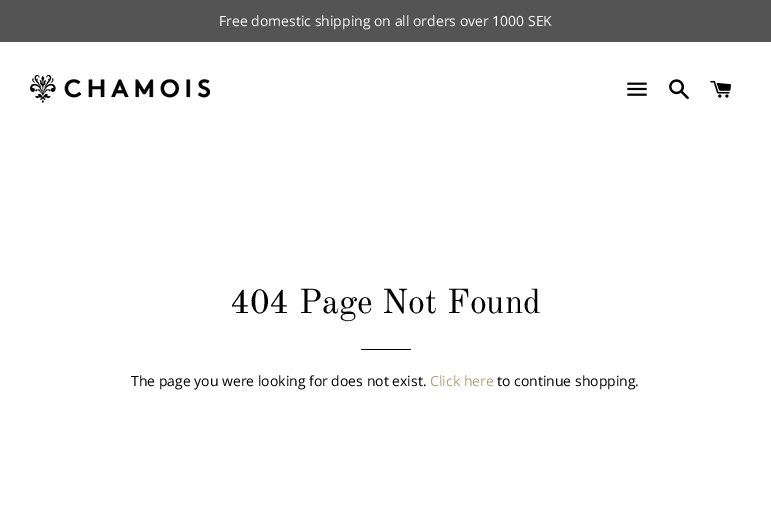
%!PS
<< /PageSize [771 528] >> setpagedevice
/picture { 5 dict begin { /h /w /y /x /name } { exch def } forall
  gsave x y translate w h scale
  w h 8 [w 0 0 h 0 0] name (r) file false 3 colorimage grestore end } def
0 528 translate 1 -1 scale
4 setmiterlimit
1 setgray
0 0 771 528 rectfill
0.329 setgray
0 0 771 42 rectfill
/OpenSans-Regular [14 0 0 -14 0 0] selectfont
1 setgray
219 26 moveto (Free domestic shipping on all orders over 1000 SEK) show
(img1.rgb) 30 75 180 28 picture
(img2.rgb) 627 82 20 14 picture
(img3.rgb) 669 79 20 20 picture
(img4.rgb) 710 80 21 18 picture
/OldStandardTT-Regular [34 0 0 -34 0 0] selectfont
0 setgray
230 313 moveto (404 Page Not Found) show
361 349 50 1 rectfill
/OpenSans-Regular [14 0 0 -14 0 0] selectfont
131 386 moveto (The page you were looking for does not exist.) show
0.698 0.635 0.494 setrgbcolor
430 386 moveto (Click here) show
0 setgray
497 386 moveto (to continue shopping.) show
showpage
